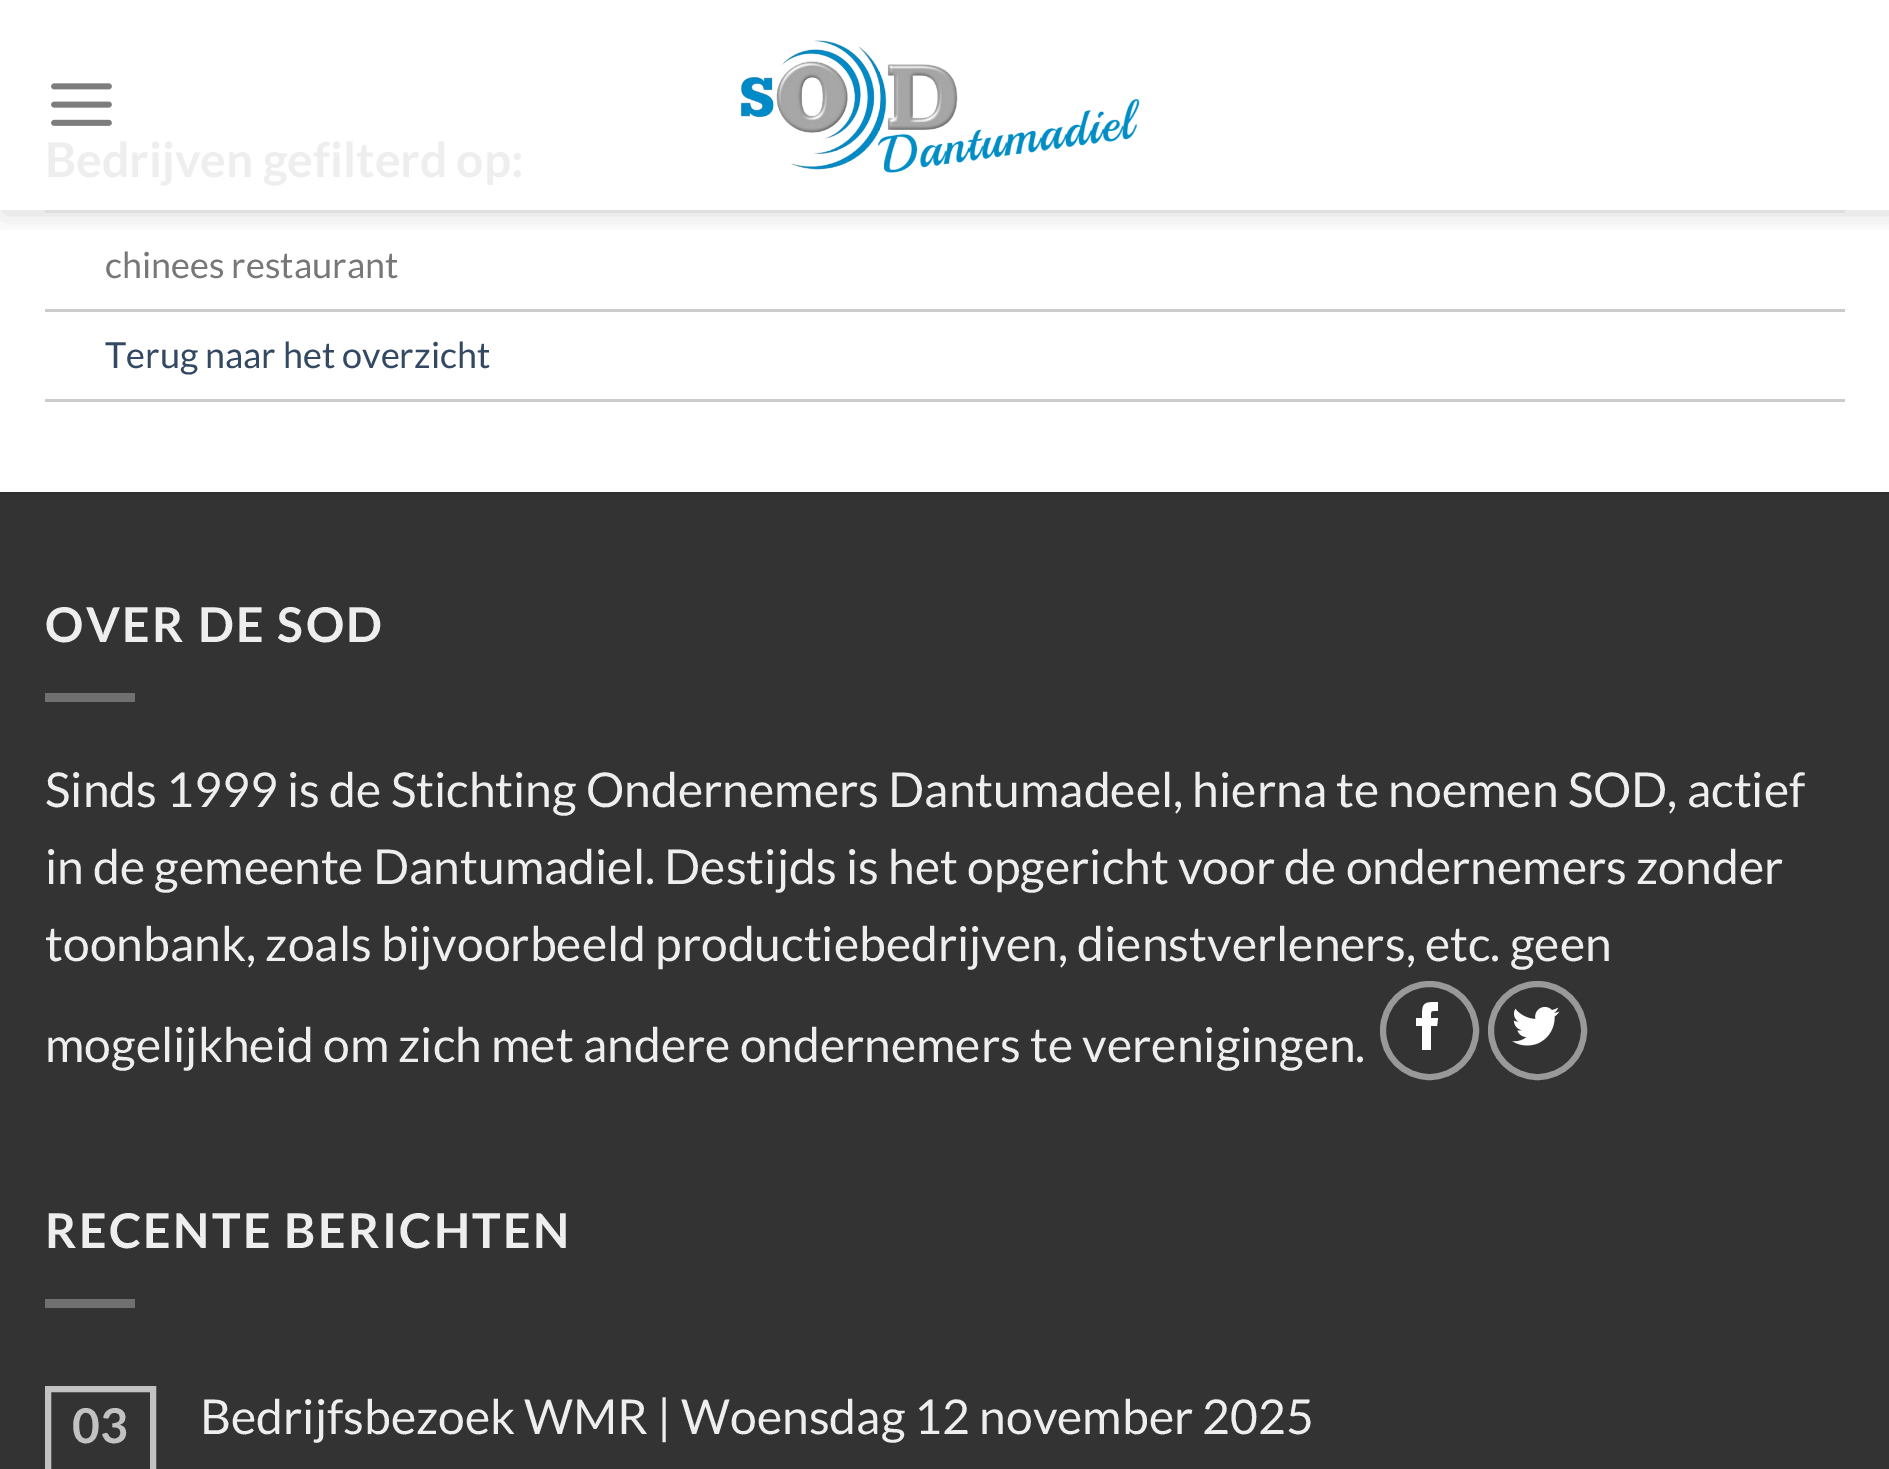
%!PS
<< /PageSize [1889 1469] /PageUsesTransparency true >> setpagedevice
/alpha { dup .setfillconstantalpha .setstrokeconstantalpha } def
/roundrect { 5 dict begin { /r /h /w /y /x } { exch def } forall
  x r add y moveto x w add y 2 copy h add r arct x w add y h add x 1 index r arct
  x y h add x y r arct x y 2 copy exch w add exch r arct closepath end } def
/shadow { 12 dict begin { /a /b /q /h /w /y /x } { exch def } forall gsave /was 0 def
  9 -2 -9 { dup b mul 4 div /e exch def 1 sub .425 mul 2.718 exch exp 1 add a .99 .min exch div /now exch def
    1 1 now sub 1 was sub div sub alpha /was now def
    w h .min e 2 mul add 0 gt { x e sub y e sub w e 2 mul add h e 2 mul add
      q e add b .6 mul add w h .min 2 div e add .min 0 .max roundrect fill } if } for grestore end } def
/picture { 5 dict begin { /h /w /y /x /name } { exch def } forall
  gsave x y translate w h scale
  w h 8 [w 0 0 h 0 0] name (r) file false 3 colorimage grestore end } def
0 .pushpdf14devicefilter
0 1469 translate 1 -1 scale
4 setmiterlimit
1 setgray
0 0 1889 1469 rectfill
gsave
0 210 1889 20 rectclip
0 setgray
3 3 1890 210 0 15 0.15 shadow
grestore
(img1.rgb) 51 83 61 43 picture
(img2.rgb) 741 40 399 133 picture
0.875 setgray
45 210 1800 3 rectfill
/Lato-Bold [48 0 0 -48 0 0] selectfont
0.933 setgray
45 177 moveto (Bedrijven gefilterd op:) show
0.8 setgray
45 309 1800 3 rectfill
/Lato-Regular [36 0 0 -36 0 0] selectfont
0.467 setgray
105 278 moveto (chinees restaurant) show
0.8 setgray
45 399 1800 3 rectfill
0.2 0.282 0.384 setrgbcolor
105 368 moveto (Terug naar het overzicht) show
0.2 setgray
0 495 1889 974 rectfill
0.188 setgray
0 492 1889 3 rectfill
/Lato-Bold [48 0 0 -48 0 0] selectfont
0.933 setgray
45 642 moveto 2.4 0 (OVER DE SOD) ashow
0.439 setgray
45 693 90 9 rectfill
/Lato-Regular [48 0 0 -48 0 0] selectfont
0.933 setgray
45 807 moveto (Sinds 1999 is de Stichting Ondernemers Dantumadeel, hierna te noemen SOD, actief) show
45 884 moveto (in de gemeente Dantumadiel. Destijds is het opgericht voor de ondernemers zonder) show
45 961 moveto (toonbank, zoals bijvoorbeeld productiebedrijven, dienstverleners, etc. geen) show
45 1062 moveto (mogelijkheid om zich met andere ondernemers te verenigingen.) show
0.6 setgray
6 setlinewidth
newpath 1429.5 1030.5 46.5 0 360 arc closepath stroke
1 setgray
newpath 1431 1050 moveto 1422 1050 lineto 1422 1026 lineto 1416 1026 lineto 1416 1018 lineto 1422 1018 lineto 1422 1003 1423 1002 1438 1002 curveto 1438 1011 lineto 1430 1011 1431 1010 1431 1018 curveto 1438 1018 lineto 1437 1026 lineto 1431 1026 lineto closepath fill
0.6 setgray
newpath 1537.5 1030.5 46.5 0 360 arc closepath stroke
(img3.rgb) 1512 1006 48 40 picture
/Lato-Bold [48 0 0 -48 0 0] selectfont
0.933 setgray
45 1248 moveto 2.4 0 (RECENTE BERICHTEN) ashow
0.439 setgray
45 1299 90 9 rectfill
0.761 setgray
48 1389 105 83 rectstroke
72 1443 moveto (03) show
/Lato-Regular [48 0 0 -48 0 0] selectfont
0.933 setgray
200 1434 moveto (Bedrijfsbezoek WMR | Woensdag 12 november 2025) show
.poppdf14devicefilter showpage
